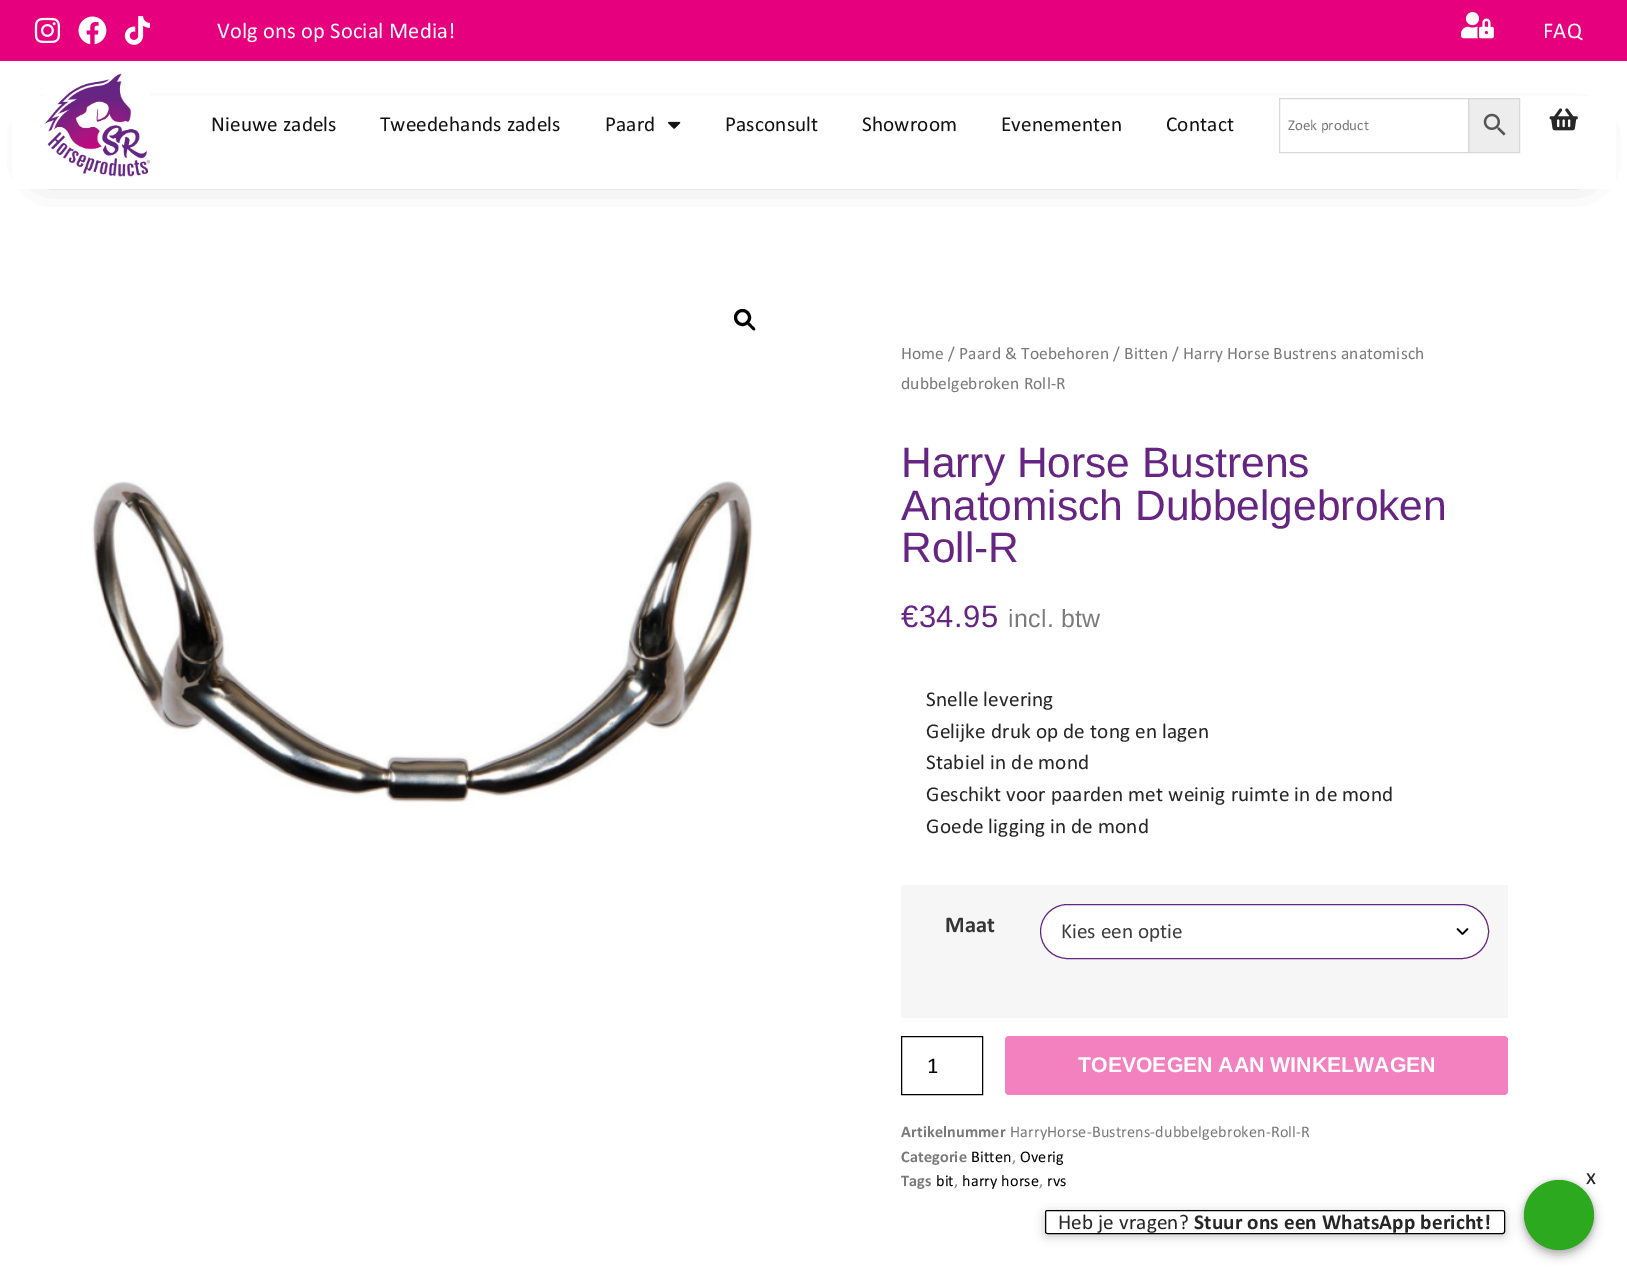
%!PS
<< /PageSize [1627 1277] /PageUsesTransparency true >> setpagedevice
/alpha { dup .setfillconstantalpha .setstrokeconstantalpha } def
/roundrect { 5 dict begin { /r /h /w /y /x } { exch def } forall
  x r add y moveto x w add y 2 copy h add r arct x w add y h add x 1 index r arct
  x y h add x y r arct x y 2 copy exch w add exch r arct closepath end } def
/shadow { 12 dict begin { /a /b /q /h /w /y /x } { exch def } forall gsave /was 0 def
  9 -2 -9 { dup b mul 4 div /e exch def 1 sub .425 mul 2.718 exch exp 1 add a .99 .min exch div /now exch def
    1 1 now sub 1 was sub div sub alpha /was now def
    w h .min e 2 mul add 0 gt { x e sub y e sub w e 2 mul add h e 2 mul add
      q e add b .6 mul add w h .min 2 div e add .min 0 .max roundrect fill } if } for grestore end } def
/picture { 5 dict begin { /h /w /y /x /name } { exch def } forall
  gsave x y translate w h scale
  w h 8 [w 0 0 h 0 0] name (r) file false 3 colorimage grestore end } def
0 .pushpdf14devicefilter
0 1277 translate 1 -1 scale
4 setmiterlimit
1 setgray
0 0 1627 1277 rectfill
0.902 0 0.494 setrgbcolor
0 0 1627 61 rectfill
(img1.rgb) 34 17 27 27 picture
(img2.rgb) 78 16 29 29 picture
(img3.rgb) 124 16 26 29 picture
/Calibri-Regular [22.5 0 0 -22.5 0 0] selectfont
1 setgray
217 38 moveto 0.12 0 (Volg ons op Social Media!) ashow
(img4.rgb) 1461 12 33 27 picture
1543 38 moveto 0.12 0 (FAQ) ashow
0 setgray
45 131 1538 38 0 17 0.5 shadow
1 setgray
12 96 1604 93 rectfill
(img5.rgb) 45 73 105 104 picture
/Calibri-Regular [21.25 0 0 -21.25 0 0] selectfont
0.078 setgray
211 131 moveto 0.12 0 (Nieuwe zadels) ashow
380 131 moveto 0.12 0 (Tweedehands zadels) ashow
605 131 moveto 0.12 0 (Paard) ashow
(img6.rgb) 668 121 13 8 picture
725 131 moveto 0.12 0 (Pasconsult) ashow
862 131 moveto 0.12 0 (Showroom) ashow
1001 131 moveto 0.12 0 (Evenementen) ashow
1166 131 moveto 0.12 0 (Contact) ashow
0.929 setgray
newpath 1468.5 98.5 moveto 1519.5 98.5 lineto 1519.5 152.5 lineto 1468.5 152.5 lineto closepath gsave fill grestore
0.847 setgray
stroke
1279.5 98.5 189 54 rectstroke
/Calibri-Regular [15 0 0 -15 0 0] selectfont
0.478 setgray
1288 130 moveto (Zoek product) show
(img7.rgb) 1483 113 23 23 picture
(img8.rgb) 1549 108 29 23 picture
0 setgray
3 setlinewidth
newpath 742.5 317.5 7 0 360 arc closepath stroke
newpath 747.5 323 moveto 749 321.5 751.5 324.5 752 325.5 curveto 753 326 756 328.5 755 330 curveto 753.5 331.5 751 328 750.5 327.5 curveto 749.5 326.5 746.5 324.5 747.5 323 curveto closepath fill
(img9.rgb) 92 481 661 324 picture
/Calibri-Regular [17.5 0 0 -17.5 0 0] selectfont
0.478 setgray
901 359 moveto 0.12 0 (Home / Paard & Toebehoren / Bitten / Harry Horse Bustrens anatomisch) ashow
901 389 moveto 0.12 0 (dubbelgebroken Roll-R) ashow
/LiberationSans-Regular [42.5 0 0 -42.5 0 0] selectfont
0.4 0.141 0.514 setrgbcolor
901 477 moveto (Harry Horse Bustrens) show
901 520 moveto (Anatomisch Dubbelgebroken) show
901 562 moveto (Roll-R) show
/LiberationSans-Regular [31 0 0 -31 0 0] selectfont
901 627 moveto 0.5 0 (€34.95) ashow
/LiberationSans-Regular [25 0 0 -25 0 0] selectfont
0.478 setgray
1008 627 moveto 0.25 0 (incl. btw) ashow
/Calibri-Regular [21.25 0 0 -21.25 0 0] selectfont
0.153 setgray
926 706 moveto 0.12 0 (Snelle levering) ashow
926 738 moveto 0.12 0 (Gelijke druk op de tong en lagen) ashow
926 769 moveto 0.12 0 (Stabiel in de mond) ashow
926 801 moveto 0.12 0 (Geschikt voor paarden met weinig ruimte in de mond) ashow
926 833 moveto 0.12 0 (Goede ligging in de mond) ashow
0.965 setgray
901 885 607 133 rectfill
/Calibri-Bold [22.5 0 0 -22.5 0 0] selectfont
0.208 setgray
945 932 moveto 0.12 0 (Maat) ashow
1 setgray
1040 904 449 55 27.5 roundrect fill
0 setgray
1.7 setlinewidth
1 setlinecap
1 setlinejoin
newpath 1457.5 929 moveto 1462.5 934 lineto 1467.5 929 lineto stroke
0.4 0.141 0.514 setrgbcolor
1 setlinewidth
0 setlinecap
0 setlinejoin
1040.5 904.5 448 54 27 roundrect stroke
/Calibri-Regular [21.25 0 0 -21.25 0 0] selectfont
0.243 setgray
1061 938 moveto (Kies een optie) show
0 setgray
901.5 1036.5 81 58 rectstroke
/Calibri-Regular [22.5 0 0 -22.5 0 0] selectfont
927 1073 moveto (1) show
0.953 0.502 0.749 setrgbcolor
1005 1036 503 59 4 roundrect fill
/LiberationSans-Bold [21.25 0 0 -21.25 0 0] selectfont
1 setgray
1078 1072 moveto (TOEVOEGEN AAN WINKELWAGEN) show
/Calibri-Bold [16.25 0 0 -16.25 0 0] selectfont
0.478 setgray
901 1137 moveto 0.12 0 (Artikelnummer) ashow
/Calibri-Regular [16.25 0 0 -16.25 0 0] selectfont
1010 1137 moveto 0.12 0 (HarryHorse-Bustrens-dubbelgebroken-Roll-R) ashow
/Calibri-Bold [16.25 0 0 -16.25 0 0] selectfont
901 1162 moveto 0.12 0 (Categorie) ashow
/Calibri-Regular [16.25 0 0 -16.25 0 0] selectfont
0 setgray
971 1162 moveto 0.12 0 (Bitten) ashow
0.478 setgray
1012 1162 moveto 0.12 0 (,) ashow
0 setgray
1020 1162 moveto 0.12 0 (Overig) ashow
/Calibri-Bold [16.25 0 0 -16.25 0 0] selectfont
0.478 setgray
901 1186 moveto 0.12 0 (Tags) ashow
/Calibri-Regular [16.25 0 0 -16.25 0 0] selectfont
0 setgray
936 1186 moveto 0.12 0 (bit) ashow
0.478 setgray
954 1186 moveto 0.12 0 (,) ashow
0 setgray
962 1186 moveto 0.12 0 (harry horse) ashow
0.478 setgray
1039 1186 moveto 0.12 0 (,) ashow
0 setgray
1047 1186 moveto 0.12 0 (rvs) ashow
1524 1185 70 70 35 5 0.28 shadow
1524 1180 70 70 35 2.5 0.14 shadow
/Calibri-Regular [23 0 0 -23 0 0] selectfont
0.153 setgray
1586 1184 moveto 0.12 0 (x) ashow
0.173 0.663 0.118 setrgbcolor
newpath 1559 1215 35 0 360 arc closepath fill
0.388 setgray
1045 1213 460 23 2.5 5 0.4 shadow
1 setgray
1045.5 1210.5 459 23 2 roundrect gsave fill grestore
0 setgray
stroke
/Calibri-Regular [21.25 0 0 -21.25 0 0] selectfont
0.153 setgray
1058 1229 moveto 0.12 0 (Heb je vragen?) ashow
/Calibri-Bold [21.25 0 0 -21.25 0 0] selectfont
1194 1229 moveto 0.12 0 (Stuur ons een WhatsApp bericht!) ashow
.poppdf14devicefilter showpage
